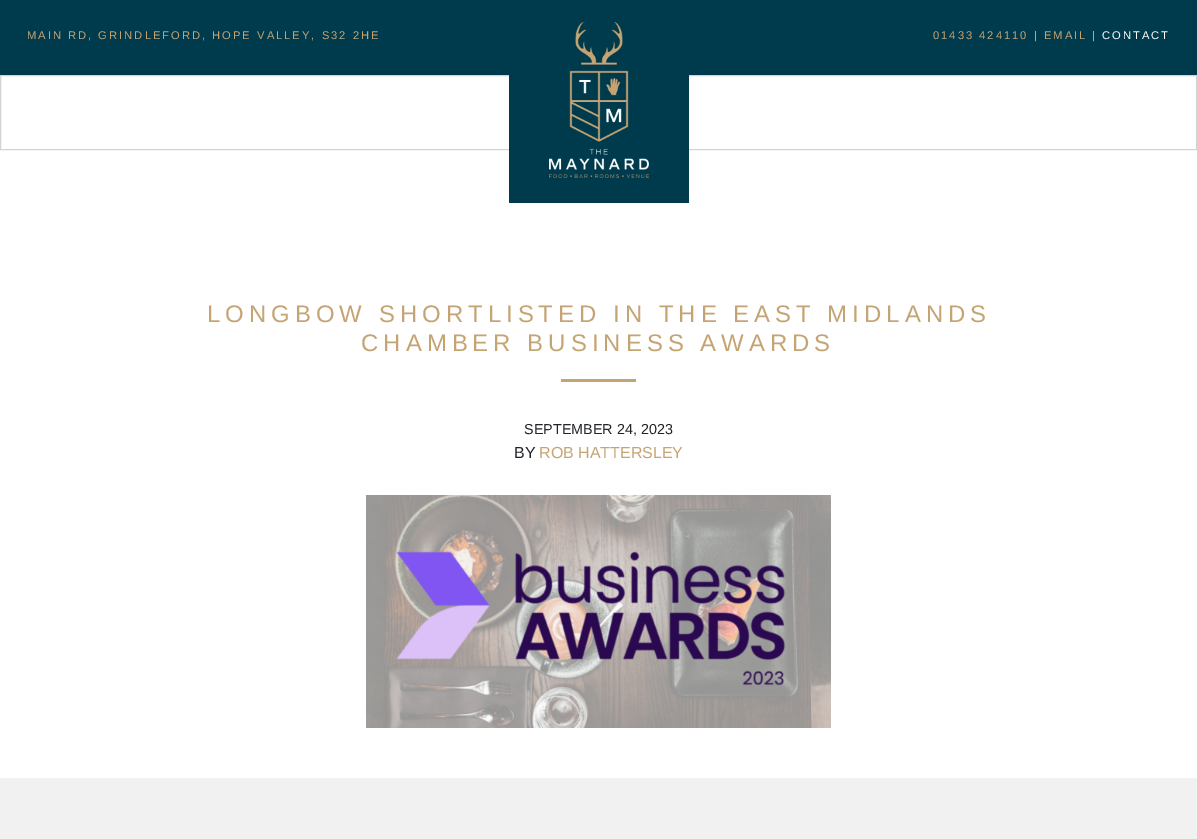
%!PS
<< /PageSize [1197 839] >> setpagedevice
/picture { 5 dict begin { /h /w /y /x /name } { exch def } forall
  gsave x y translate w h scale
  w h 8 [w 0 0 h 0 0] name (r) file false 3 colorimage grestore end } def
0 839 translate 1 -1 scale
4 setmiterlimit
1 setgray
0 0 1197 839 rectfill
0.831 0.827 0.827 setrgbcolor
0.5 75.5 1196 74 rectstroke
0 0.231 0.302 setrgbcolor
509 75 180 128 rectfill
0 0 1197 75 rectfill
(img1.rgb) 549 22 100 156 picture
/LiberationSans-Regular [11.2 0 0 -11.2 0 0] selectfont
0.773 0.643 0.455 setrgbcolor
27 39 moveto 2 0 (MAIN RD, GRINDLEFORD, HOPE VALLEY, S32 2HE) ashow
933 39 moveto 2 0 (01433 424110 | EMAIL |) ashow
1 setgray
1102 39 moveto 2 0 (CONTACT) ashow
/LiberationSans-Regular [23.95 0 0 -23.95 0 0] selectfont
0.773 0.643 0.455 setrgbcolor
207 322 moveto 5 0 (LONGBOW SHORTLISTED IN THE EAST MIDLANDS) ashow
361 351 moveto 5 0 (CHAMBER BUSINESS AWARDS) ashow
561 379 75 3 rectfill
/LiberationSans-Regular [14.4 0 0 -14.4 0 0] selectfont
0.129 0.145 0.161 setrgbcolor
524 434 moveto (SEPTEMBER 24, 2023) show
/LiberationSans-Regular [16 0 0 -16 0 0] selectfont
514 458 moveto (BY) show
0.773 0.643 0.455 setrgbcolor
539 458 moveto (ROB HATTERSLEY) show
(img2.rgb) 366 495 465 233 picture
0.945 setgray
0 778 1197 61 rectfill
showpage
